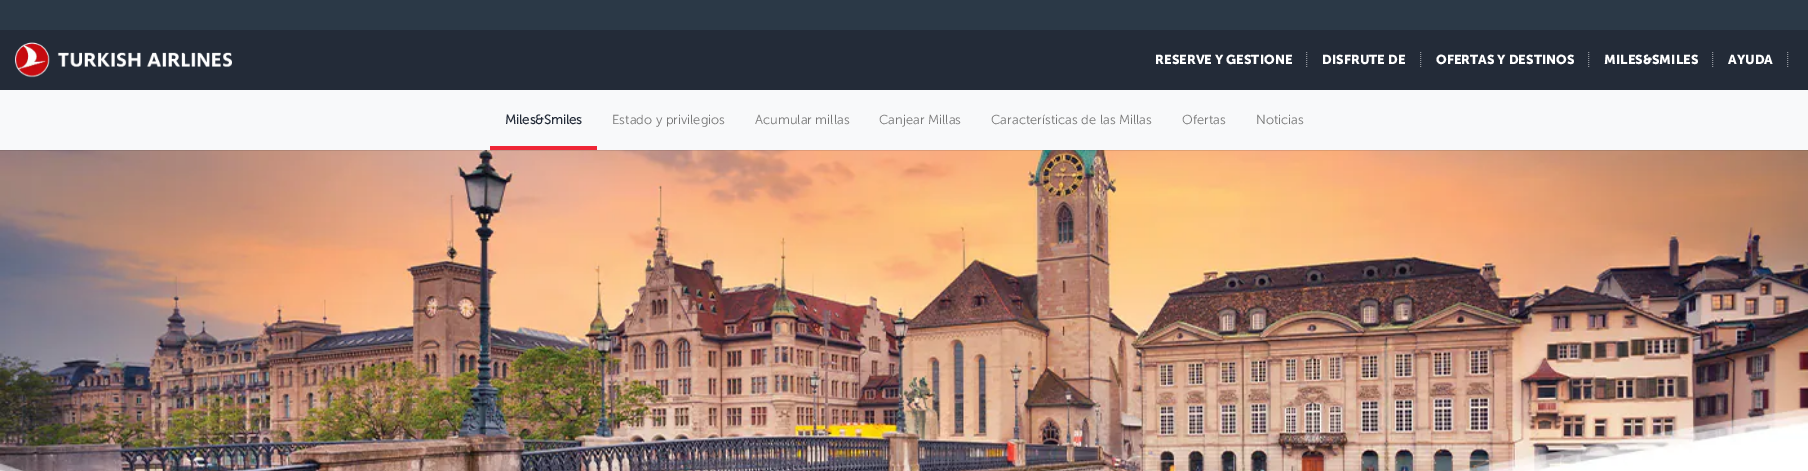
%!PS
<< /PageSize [1808 471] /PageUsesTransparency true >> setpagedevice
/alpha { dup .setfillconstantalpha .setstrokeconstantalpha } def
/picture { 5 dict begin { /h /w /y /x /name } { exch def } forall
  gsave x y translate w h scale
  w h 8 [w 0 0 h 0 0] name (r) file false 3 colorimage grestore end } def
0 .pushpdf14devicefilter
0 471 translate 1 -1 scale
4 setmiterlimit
1 setgray
0 0 1808 471 rectfill
0.137 0.169 0.22 setrgbcolor
0 30 1808 60 rectfill
(img1.rgb) 15 42 217 36 picture
0.169 0.224 0.278 setrgbcolor
0 0 1808 30 rectfill
/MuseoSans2-Bold [13 0 0 -13 0 0] selectfont
1 setgray
1155 64 moveto (RESERVE Y GESTIONE) show
0.569 0.584 0.612 setrgbcolor
[1 1] 0 setdash
newpath 1306.5 52 moveto 1306.5 67 lineto stroke
1 setgray
1322 64 moveto (DISFRUTE DE) show
0.569 0.584 0.612 setrgbcolor
newpath 1420.5 52 moveto 1420.5 67 lineto stroke
1 setgray
1436 64 moveto (OFERTAS Y DESTINOS) show
0.569 0.584 0.612 setrgbcolor
newpath 1588.5 52 moveto 1588.5 67 lineto stroke
1 setgray
1604 64 moveto (MILES&SMILES) show
0.569 0.584 0.612 setrgbcolor
newpath 1712.5 52 moveto 1712.5 67 lineto stroke
1 setgray
1728 64 moveto (AYUDA) show
0.569 0.584 0.612 setrgbcolor
newpath 1787.5 52 moveto 1787.5 67 lineto stroke
(img2.rgb) 0 150 1808 321 picture
0.1 alpha
0 setgray
0 150 1808 1 rectfill
1 alpha
0.973 0.976 0.98 setrgbcolor
0 90 1808 60 rectfill
0.937 0.149 0.212 setrgbcolor
490 146 107 4 rectfill
/MuseoSans-Bold [13 0 0 -13 0 0] selectfont
0.137 0.169 0.22 setrgbcolor
505 124 moveto (Miles&Smiles) show
/MuseoSans-Light [13 0 0 -13 0 0] selectfont
0.467 setgray
612 124 moveto (Estado y privilegios) show
755 124 moveto (Acumular millas) show
879 124 moveto (Canjear Millas) show
991 124 moveto (Características de las Millas) show
1182 124 moveto (Ofertas) show
1256 124 moveto (Noticias) show
.poppdf14devicefilter showpage
